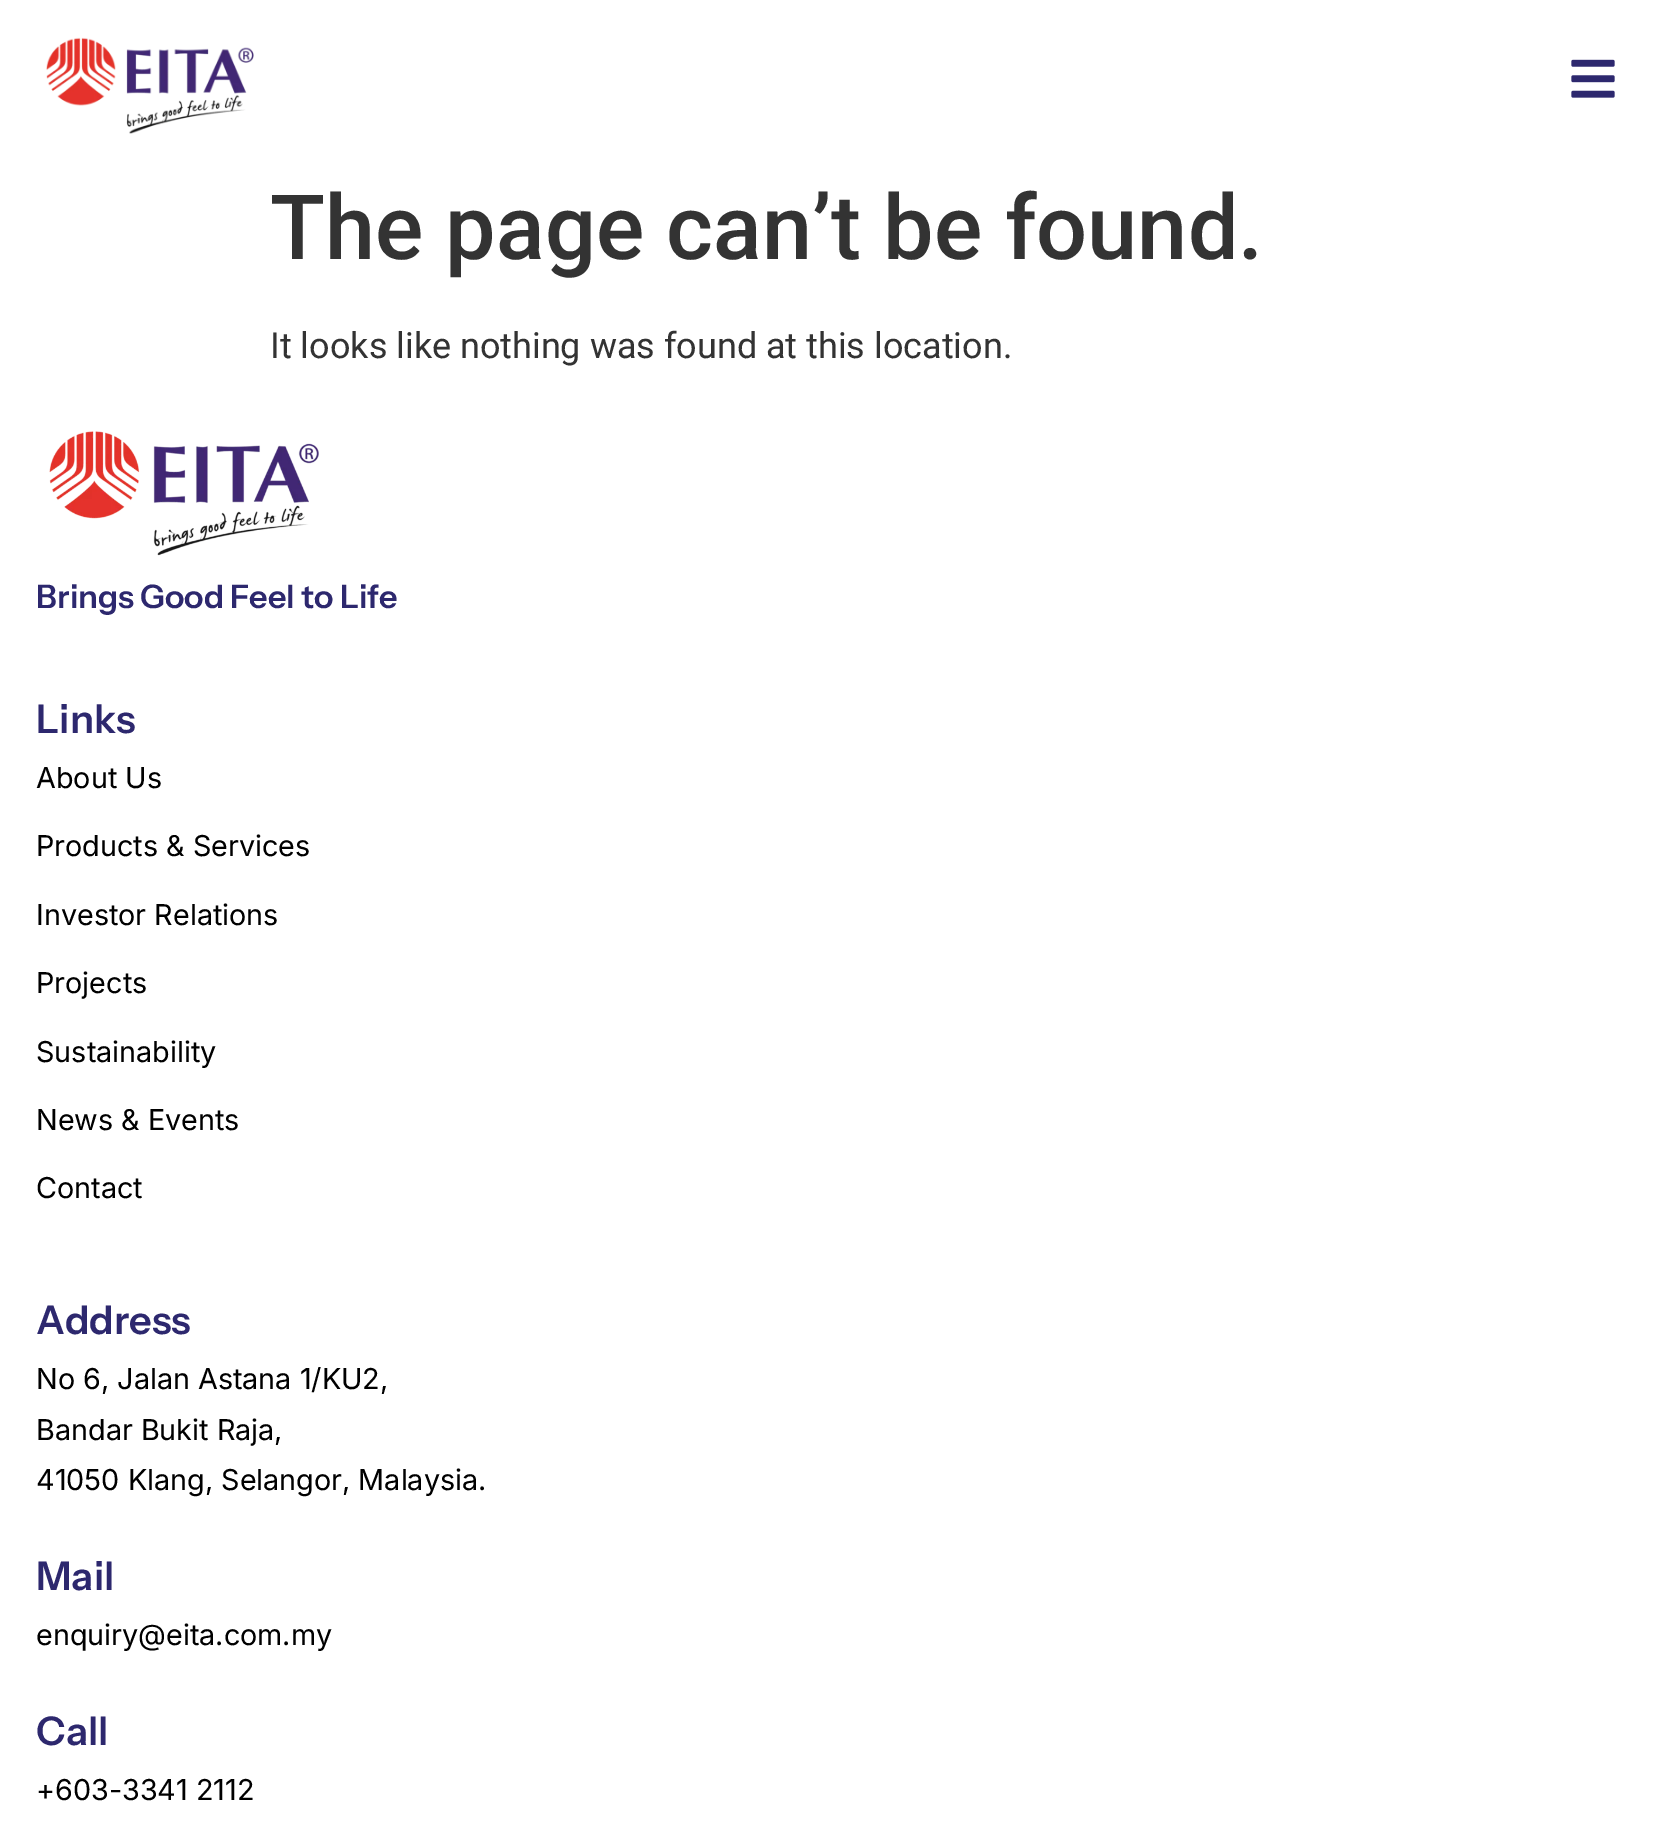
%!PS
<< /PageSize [1665 1846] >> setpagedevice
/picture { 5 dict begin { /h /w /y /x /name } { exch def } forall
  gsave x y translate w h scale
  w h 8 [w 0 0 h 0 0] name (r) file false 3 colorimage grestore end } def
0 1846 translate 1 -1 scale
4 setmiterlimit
1 setgray
0 0 1665 1846 rectfill
(img1.rgb) 46 37 208 97 picture
(img2.rgb) 1571 59 44 39 picture
/Roboto-Medium [90 0 0 -90 0 0] selectfont
0.2 setgray
270 259 moveto (The page can’t be found.) show
/Roboto-Regular [36 0 0 -36 0 0] selectfont
270 358 moveto (It looks like nothing was found at this location.) show
(img3.rgb) 49 431 270 125 picture
/InstrumentSans-SemiBold [32.4 0 0 -32.4 0 0] selectfont
0.176 0.157 0.431 setrgbcolor
36 608 moveto (Brings Good Feel to Life) show
/InstrumentSans-SemiBold [39.5 0 0 -39.5 0 0] selectfont
36 733 moveto (Links) show
/Inter-Regular [28.75 0 0 -28.75 0 0] selectfont
0 setgray
36 788 moveto (About Us) show
36 856 moveto (Products & Services) show
36 925 moveto (Investor Relations) show
36 993 moveto (Projects) show
36 1062 moveto (Sustainability) show
36 1130 moveto (News & Events) show
36 1198 moveto (Contact) show
/InstrumentSans-SemiBold [39.5 0 0 -39.5 0 0] selectfont
0.176 0.157 0.431 setrgbcolor
36 1334 moveto (Address) show
/Inter-Regular [28.75 0 0 -28.75 0 0] selectfont
0 setgray
36 1389 moveto (No 6, Jalan Astana 1/KU2,) show
36 1440 moveto (Bandar Bukit Raja,) show
36 1490 moveto (41050 Klang, Selangor, Malaysia.) show
/InstrumentSans-SemiBold [39.5 0 0 -39.5 0 0] selectfont
0.176 0.157 0.431 setrgbcolor
36 1590 moveto (Mail) show
/Inter-Regular [28.75 0 0 -28.75 0 0] selectfont
0 setgray
36 1645 moveto (enquiry@eita.com.my) show
/InstrumentSans-SemiBold [39.5 0 0 -39.5 0 0] selectfont
0.176 0.157 0.431 setrgbcolor
36 1745 moveto (Call) show
/Inter-Regular [28.75 0 0 -28.75 0 0] selectfont
0 setgray
36 1800 moveto (+603-3341 2112) show
showpage
